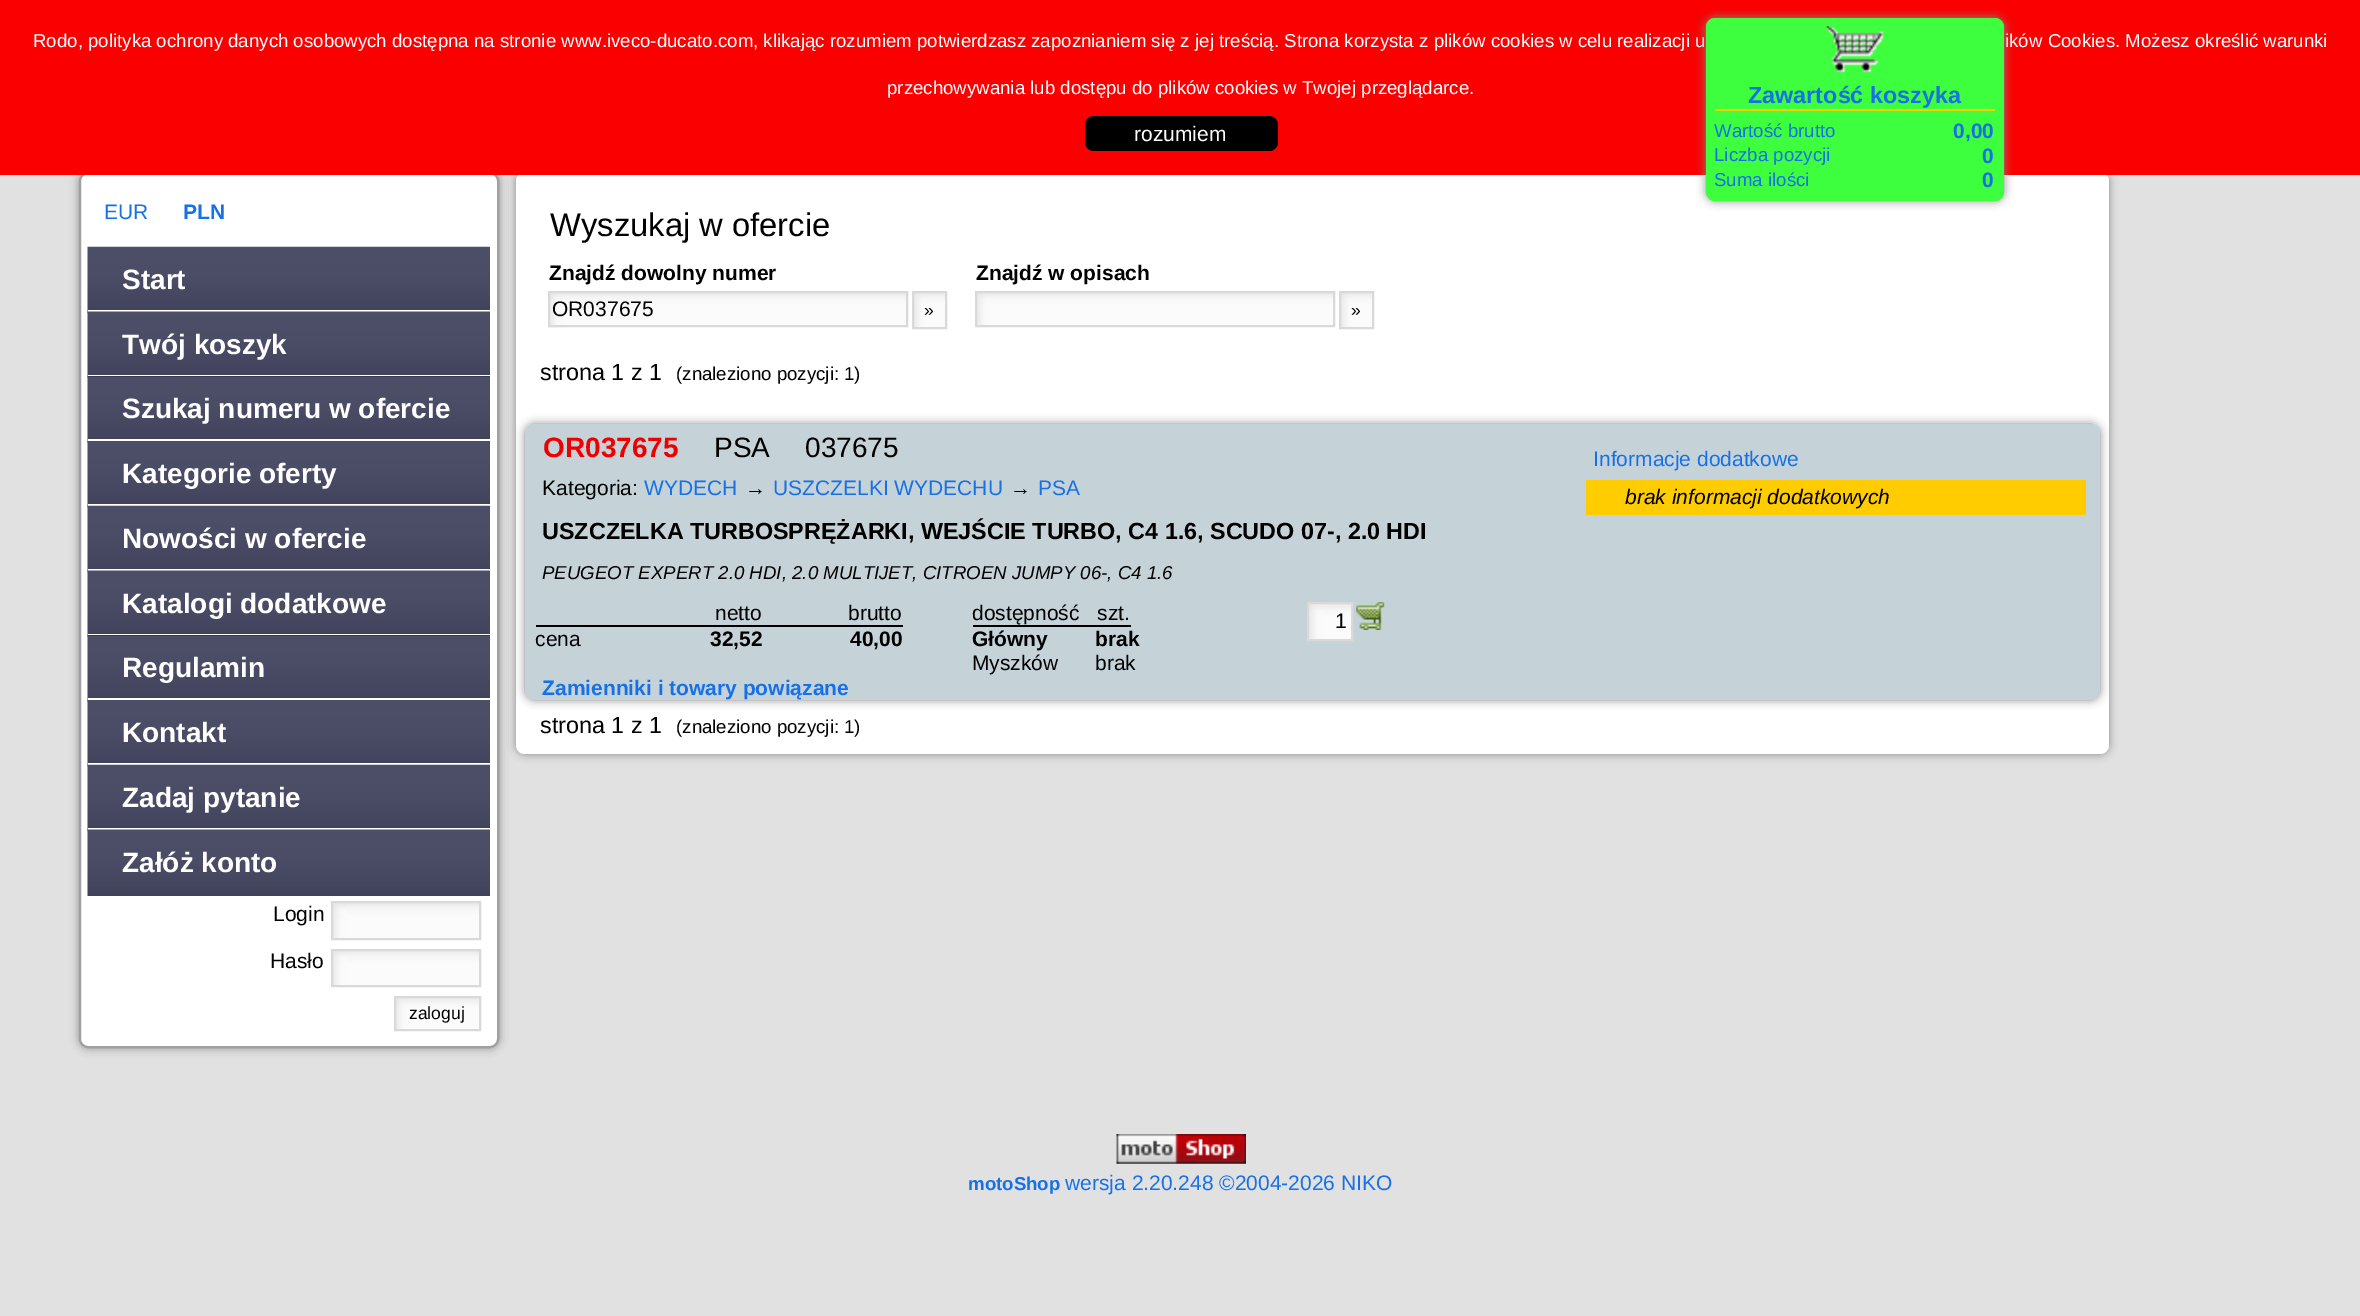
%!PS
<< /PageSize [2360 1316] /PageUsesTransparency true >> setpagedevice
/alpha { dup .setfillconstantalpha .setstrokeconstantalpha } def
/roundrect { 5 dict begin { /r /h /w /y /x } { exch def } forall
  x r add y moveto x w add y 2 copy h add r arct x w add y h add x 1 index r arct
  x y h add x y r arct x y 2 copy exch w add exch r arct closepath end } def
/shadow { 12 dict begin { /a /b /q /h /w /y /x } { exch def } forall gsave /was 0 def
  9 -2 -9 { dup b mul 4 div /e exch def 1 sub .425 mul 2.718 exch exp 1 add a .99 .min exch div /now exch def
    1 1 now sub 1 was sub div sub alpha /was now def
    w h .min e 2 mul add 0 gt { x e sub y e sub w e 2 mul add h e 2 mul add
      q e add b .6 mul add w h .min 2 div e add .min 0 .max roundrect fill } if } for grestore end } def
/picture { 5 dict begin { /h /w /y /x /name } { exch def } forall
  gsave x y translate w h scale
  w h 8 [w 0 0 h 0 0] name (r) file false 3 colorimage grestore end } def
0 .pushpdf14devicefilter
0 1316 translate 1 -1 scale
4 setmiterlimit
0.882 setgray
0 0 2360 1316 rectfill
0.533 setgray
79 172 420 876 9 4.5 1 shadow
1 setgray
80 173 418 874 8 roundrect gsave fill grestore
0.627 setgray
2 setlinewidth
stroke
0.533 setgray
516 172 1593 582 9 4.5 1 shadow
1 setgray
516 172 1593 582 9 roundrect fill
0.98 0 0 setrgbcolor
0 0 2360 175 rectfill
/LiberationSans-Regular [18.67 0 0 -18.67 0 0] selectfont
1 setgray
33 47 moveto (Rodo, polityka ochrony danych osobowych dostępna na stronie www.iveco-ducato.com, klikając rozumiem potwierdzasz zapoznianiem się z jej treścią. Strona korzysta z plików cookies w celu realizacji u) show
2005 47 moveto (ików Cookies. Możesz określić warunki) show
887 94 moveto (przechowywania lub dostępu do plików cookies w Twojej przeglądarce.) show
0 setgray
1085 116 193 35 9 roundrect fill
/LiberationSans-Regular [21 0 0 -21 0 0] selectfont
1 setgray
1134 141 moveto (rozumiem) show
0.533 setgray
1706 18 298 183 9 4.5 1 shadow
0.243 1 0.243 setrgbcolor
1706 18 298 183 9 roundrect fill
(img1.rgb) 1826 26 58 47 picture
1 0.8 0 setrgbcolor
1715 109 280 2 rectfill
/LiberationSans-Bold [23.35 0 0 -23.35 0 0] selectfont
0.086 0.439 0.902 setrgbcolor
1748 103 moveto (Zawartość koszyka) show
/LiberationSans-Regular [18.67 0 0 -18.67 0 0] selectfont
1714 137 moveto (Wartość brutto) show
/LiberationSans-Bold [21 0 0 -21 0 0] selectfont
1953 138 moveto (0,00) show
/LiberationSans-Regular [18.67 0 0 -18.67 0 0] selectfont
1714 161 moveto (Liczba pozycji) show
/LiberationSans-Bold [21 0 0 -21 0 0] selectfont
1982 163 moveto (0) show
/LiberationSans-Regular [18.67 0 0 -18.67 0 0] selectfont
1714 186 moveto (Suma ilości) show
/LiberationSans-Bold [21 0 0 -21 0 0] selectfont
1982 187 moveto (0) show
/LiberationSans-Regular [21 0 0 -21 0 0] selectfont
104 219 moveto (EUR) show
/LiberationSans-Bold [21 0 0 -21 0 0] selectfont
183 219 moveto (PLN) show
(img2.rgb) 87 246 403 68 picture
/LiberationSans-Bold [28 0 0 -28 0 0] selectfont
1 setgray
122 289 moveto (Start) show
88 310 402 2 rectfill
(img3.rgb) 87 311 403 67 picture
122 354 moveto (Twój koszyk) show
88 375 402 2 rectfill
(img4.rgb) 87 376 403 67 picture
122 418 moveto (Szukaj numeru w ofercie) show
88 439 402 2 rectfill
(img5.rgb) 87 441 403 67 picture
122 483 moveto (Kategorie oferty) show
88 504 402 2 rectfill
(img6.rgb) 87 505 403 68 picture
122 548 moveto (Nowości w ofercie) show
88 569 402 2 rectfill
(img3.rgb) 87 570 403 67 picture
122 613 moveto (Katalogi dodatkowe) show
88 634 402 2 rectfill
(img4.rgb) 87 635 403 67 picture
122 677 moveto (Regulamin) show
88 698 402 2 rectfill
(img5.rgb) 87 700 403 67 picture
122 742 moveto (Kontakt) show
88 763 402 2 rectfill
(img6.rgb) 87 764 403 68 picture
122 807 moveto (Zadaj pytanie) show
88 828 402 2 rectfill
(img3.rgb) 87 829 403 67 picture
122 872 moveto (Załóż konto) show
/LiberationSans-Regular [21 0 0 -21 0 0] selectfont
0 setgray
273 921 moveto (Login) show
(img7.rgb) 333 903 149 37 picture
0.851 setgray
332 902 148 37 rectstroke
0 setgray
270 968 moveto (Hasło) show
(img8.rgb) 333 950 149 37 picture
0.851 setgray
332 950 148 36 rectstroke
(img9.rgb) 396 997 86 34 picture
395 997 85 33 rectstroke
/LiberationSans-Regular [17.5 0 0 -17.5 0 0] selectfont
0 setgray
409 1019 moveto (zaloguj) show
/LiberationSans-Regular [32.75 0 0 -32.75 0 0] selectfont
550 236 moveto (Wyszukaj w ofercie) show
/LiberationSans-Bold [21 0 0 -21 0 0] selectfont
549 280 moveto (Znajdź dowolny numer) show
(img10.rgb) 549 292 360 36 picture
0.851 setgray
549 292 358 34 rectstroke
/LiberationSans-Regular [21 0 0 -21 0 0] selectfont
0 setgray
552 316 moveto (OR037675) show
(img11.rgb) 914 293 31 34 picture
0.851 setgray
913 292 33 36 rectstroke
/LiberationSans-Regular [17.5 0 0 -17.5 0 0] selectfont
0 setgray
924 316 moveto (») show
/LiberationSans-Bold [21 0 0 -21 0 0] selectfont
976 280 moveto (Znajdź w opisach) show
(img10.rgb) 976 292 360 36 picture
0.851 setgray
976 292 358 34 rectstroke
(img11.rgb) 1341 293 31 34 picture
1340 292 33 36 rectstroke
/LiberationSans-Regular [17.5 0 0 -17.5 0 0] selectfont
0 setgray
1351 316 moveto (») show
/LiberationSans-Regular [23.35 0 0 -23.35 0 0] selectfont
540 380 moveto (strona 1 z 1) show
/LiberationSans-Regular [18.67 0 0 -18.67 0 0] selectfont
676 380 moveto (\(znaleziono pozycji: 1\)) show
0.533 setgray
525 424 1575 276 9 4.5 1 shadow
0.773 0.827 0.847 setrgbcolor
525 424 1575 276 9 roundrect fill
/LiberationSans-Bold [28 0 0 -28 0 0] selectfont
0.933 0 0 setrgbcolor
543 457 moveto (OR037675) show
/LiberationSans-Regular [28 0 0 -28 0 0] selectfont
0 setgray
714 457 moveto (PSA) show
805 457 moveto (037675) show
/LiberationSans-Regular [21 0 0 -21 0 0] selectfont
542 495 moveto (Kategoria:) show
0.086 0.439 0.902 setrgbcolor
644 495 moveto (WYDECH) show
0 setgray
745 495 moveto (→) show
0.086 0.439 0.902 setrgbcolor
773 495 moveto (USZCZELKI WYDECHU) show
0 setgray
1010 495 moveto (→) show
0.086 0.439 0.902 setrgbcolor
1038 495 moveto (PSA) show
/LiberationSans-Bold [23.35 0 0 -23.35 0 0] selectfont
0 setgray
542 539 moveto (USZCZELKA TURBOSPRĘŻARKI, WEJŚCIE TURBO, C4 1.6, SCUDO 07-, 2.0 HDI) show
/LiberationSans-Italic [18.67 0 0 -18.67 0 0] selectfont
542 579 moveto (PEUGEOT EXPERT 2.0 HDI, 2.0 MULTIJET, CITROEN JUMPY 06-, C4 1.6) show
/LiberationSans-Regular [21 0 0 -21 0 0] selectfont
715 620 moveto (netto) show
848 620 moveto (brutto) show
536 625 367 2 rectfill
535 646 moveto (cena) show
/LiberationSans-Bold [21 0 0 -21 0 0] selectfont
710 646 moveto (32,52) show
850 646 moveto (40,00) show
973 625 158 2 rectfill
/LiberationSans-Regular [21 0 0 -21 0 0] selectfont
972 620 moveto (dostępność) show
1097 620 moveto (szt.) show
/LiberationSans-Bold [21 0 0 -21 0 0] selectfont
972 646 moveto (Główny) show
1095 646 moveto (brak) show
/LiberationSans-Regular [21 0 0 -21 0 0] selectfont
972 670 moveto (Myszków) show
1095 670 moveto (brak) show
(img12.rgb) 1309 604 42 35 picture
0.851 setgray
1308 603 44 37 rectstroke
0 setgray
1335 628 moveto (1) show
(img13.rgb) 1356 602 29 28 picture
0.086 0.439 0.902 setrgbcolor
1593 466 moveto (Informacje dodatkowe) show
1 0.8 0 setrgbcolor
1586 480 500 35 rectfill
/LiberationSans-Italic [21 0 0 -21 0 0] selectfont
0 setgray
1625 504 moveto (brak informacji dodatkowych) show
/LiberationSans-Bold [21 0 0 -21 0 0] selectfont
0.086 0.439 0.902 setrgbcolor
542 695 moveto (Zamienniki i towary powiązane) show
/LiberationSans-Regular [23.35 0 0 -23.35 0 0] selectfont
0 setgray
540 733 moveto (strona 1 z 1) show
/LiberationSans-Regular [18.67 0 0 -18.67 0 0] selectfont
676 733 moveto (\(znaleziono pozycji: 1\)) show
(img14.rgb) 1116 1134 130 30 picture
/LiberationSans-Bold [18.67 0 0 -18.67 0 0] selectfont
0.086 0.439 0.902 setrgbcolor
968 1190 moveto (motoShop) show
/LiberationSans-Regular [21 0 0 -21 0 0] selectfont
1065 1190 moveto (wersja 2.20.248 ©2004-2026 NIKO) show
.poppdf14devicefilter showpage
